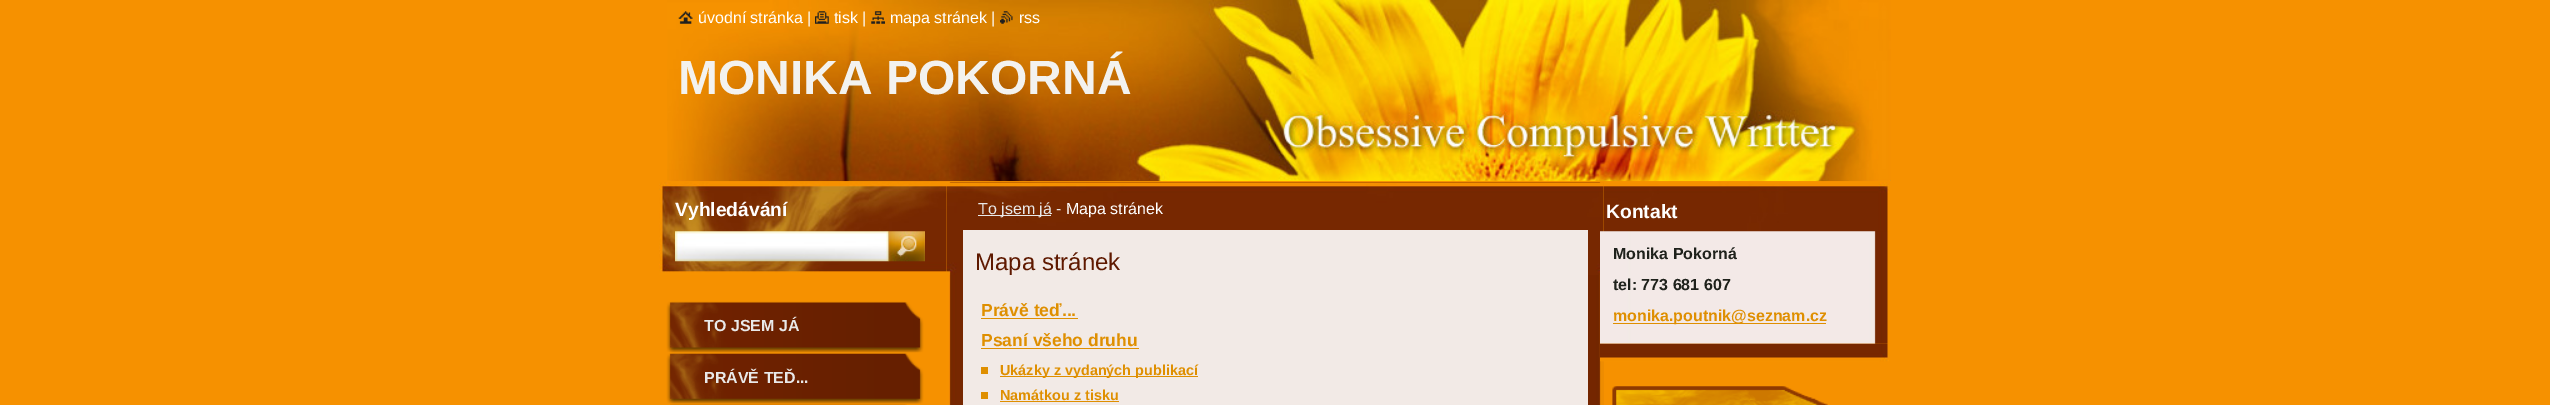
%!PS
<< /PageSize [2550 405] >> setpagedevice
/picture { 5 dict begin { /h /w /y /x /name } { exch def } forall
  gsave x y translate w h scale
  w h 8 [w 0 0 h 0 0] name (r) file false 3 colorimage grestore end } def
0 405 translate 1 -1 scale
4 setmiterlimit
0.965 0.569 0 setrgbcolor
0 0 2550 405 rectfill
(img5.rgb) 667 0 1224 182 picture
(img1.rgb) 678 11 15 13 picture
/LiberationSans-Regular [16 0 0 -16 0 0] selectfont
1 setgray
698 23 moveto (úvodní stránka |) show
(img2.rgb) 815 11 14 13 picture
834 23 moveto (tisk |) show
(img3.rgb) 871 11 14 13 picture
890 23 moveto (mapa stránek |) show
(img4.rgb) 1000 11 13 13 picture
1019 23 moveto (rss) show
/LiberationSans-Bold [48 0 0 -48 0 0] selectfont
0.953 0.949 0.937 setrgbcolor
678 94 moveto (MONIKA POKORNÁ) show
(img6.rgb) 659 182 1230 93 picture
/LiberationSans-Bold [19.25 0 0 -19.25 0 0] selectfont
1 setgray
675 216 moveto (Vyhledávání) show
(img7.rgb) 675 231 214 31 picture
(img8.rgb) 888 231 37 31 picture
(img9.rgb) 946 182 658 223 picture
(img10.rgb) 946 182 658 93 picture
0.914 setgray
978 215 73 1 rectfill
/LiberationSans-Regular [16 0 0 -16 0 0] selectfont
978 214 moveto (To jsem já -) show
1 setgray
1066 214 moveto (Mapa stránek) show
0.949 0.918 0.902 setrgbcolor
963 230 625 175 rectfill
/LiberationSans-Regular [24 0 0 -24 0 0] selectfont
0.373 0.098 0 setrgbcolor
975 270 moveto (Mapa stránek) show
/LiberationSans-Bold [17.5 0 0 -17.5 0 0] selectfont
0.875 0.561 0 setrgbcolor
981 316 moveto (Právě teď...) show
981 318 97 1 rectfill
981 346 moveto (Psaní všeho druhu) show
981 348 158 1 rectfill
1000 376 198 1 rectfill
/LiberationSans-Bold [14.4 0 0 -14.4 0 0] selectfont
1000 375 moveto (Ukázky z vydaných publikací) show
981 367 7 7 rectfill
1000 400 moveto (Namátkou z tisku) show
981 392 7 7 rectfill
1000 401 119 1 rectfill
/LiberationSans-Bold [19.25 0 0 -19.25 0 0] selectfont
1 setgray
1606 218 moveto (Kontakt) show
(img11.rgb) 1600 231 289 113 picture
/LiberationSans-Bold [16 0 0 -16 0 0] selectfont
0.122 0.133 0.11 setrgbcolor
1613 259 moveto (Monika Pokorná) show
1613 290 moveto (tel: 773 681 607) show
0.875 0.561 0 setrgbcolor
1613 323 213 1 rectfill
1613 321 moveto (monika.poutnik@seznam.cz) show
(img12.rgb) 1600 343 289 19 picture
(img13.rgb) 1612 386 216 19 picture
(img14.rgb) 1612 386 216 19 picture
(img15.rgb) 666 301 258 52 picture
0.914 setgray
704 331 moveto (TO JSEM JÁ) show
(img16.rgb) 666 353 258 51 picture
704 383 moveto (PRÁVĚ TEĎ...) show
(img17.rgb) 670 404 237 1 picture
showpage
